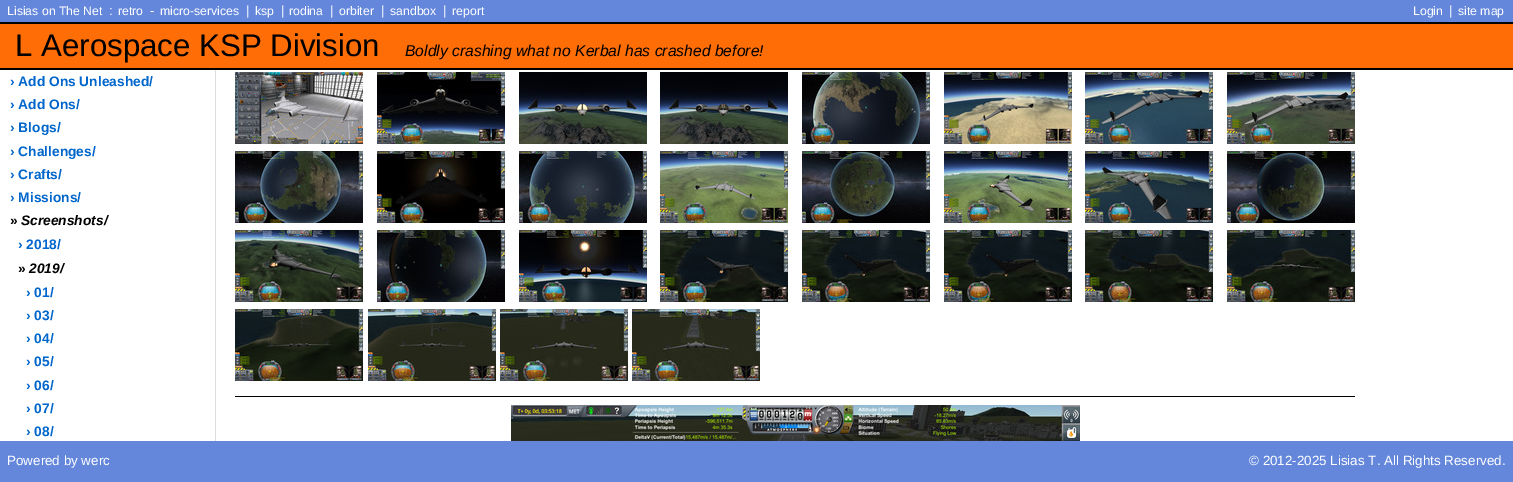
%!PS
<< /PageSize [1513 482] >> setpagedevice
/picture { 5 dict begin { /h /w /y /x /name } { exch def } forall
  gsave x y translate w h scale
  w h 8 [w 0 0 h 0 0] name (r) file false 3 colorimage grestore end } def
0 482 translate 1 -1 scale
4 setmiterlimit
1 setgray
0 0 1513 482 rectfill
0.392 0.529 0.863 setrgbcolor
0 0 1513 22 rectfill
/LiberationSans-Regular [12.25 0 0 -12.25 0 0] selectfont
1 setgray
7 15 moveto (Lisias on The Net) show
/LiberationSans-Regular [13.4 0 0 -13.4 0 0] selectfont
109 15 moveto (:) show
/LiberationSans-Regular [12.25 0 0 -12.25 0 0] selectfont
118 15 moveto (retro) show
/LiberationSans-Regular [13.4 0 0 -13.4 0 0] selectfont
150 15 moveto (-) show
/LiberationSans-Regular [12.25 0 0 -12.25 0 0] selectfont
160 15 moveto (micro-services) show
/LiberationSans-Regular [13.4 0 0 -13.4 0 0] selectfont
246 15 moveto (|) show
/LiberationSans-Regular [12.25 0 0 -12.25 0 0] selectfont
255 15 moveto (ksp) show
/LiberationSans-Regular [13.4 0 0 -13.4 0 0] selectfont
281 15 moveto (|) show
/LiberationSans-Regular [12.25 0 0 -12.25 0 0] selectfont
289 15 moveto (rodina) show
/LiberationSans-Regular [13.4 0 0 -13.4 0 0] selectfont
330 15 moveto (|) show
/LiberationSans-Regular [12.25 0 0 -12.25 0 0] selectfont
339 15 moveto (orbiter) show
/LiberationSans-Regular [13.4 0 0 -13.4 0 0] selectfont
381 15 moveto (|) show
/LiberationSans-Regular [12.25 0 0 -12.25 0 0] selectfont
390 15 moveto (sandbox) show
/LiberationSans-Regular [13.4 0 0 -13.4 0 0] selectfont
443 15 moveto (|) show
/LiberationSans-Regular [12.25 0 0 -12.25 0 0] selectfont
452 15 moveto (report) show
1413 15 moveto (Login) show
/LiberationSans-Regular [13.4 0 0 -13.4 0 0] selectfont
1449 15 moveto (|) show
/LiberationSans-Regular [12.25 0 0 -12.25 0 0] selectfont
1458 15 moveto (site map) show
1 0.427 0.024 setrgbcolor
0 24 1513 44 rectfill
0 setgray
0 22 1513 2 rectfill
0 68 1513 2 rectfill
/LiberationSans-Regular [31.25 0 0 -31.25 0 0] selectfont
15 56 moveto (L Aerospace KSP Division) show
/LiberationSans-Italic [15.7 0 0 -15.7 0 0] selectfont
405 56 moveto (Boldly crashing what no Kerbal has crashed before!) show
/LiberationSans-Bold [13.75 0 0 -13.75 0 0] selectfont
0 0.4 0.8 setrgbcolor
10 86 moveto (› Add Ons Unleashed/) show
10 109 moveto (› Add Ons/) show
10 132 moveto (› Blogs/) show
10 156 moveto (› Challenges/) show
10 179 moveto (› Crafts/) show
10 202 moveto (› Missions/) show
0 setgray
10 225 moveto (») show
/LiberationSans-BoldItalic [13.75 0 0 -13.75 0 0] selectfont
21 225 moveto (Screenshots/) show
/LiberationSans-Bold [13.75 0 0 -13.75 0 0] selectfont
0 0.4 0.8 setrgbcolor
18 249 moveto (› 2018/) show
0 setgray
18 273 moveto (») show
/LiberationSans-BoldItalic [13.75 0 0 -13.75 0 0] selectfont
29 273 moveto (2019/) show
/LiberationSans-Bold [13.75 0 0 -13.75 0 0] selectfont
0 0.4 0.8 setrgbcolor
26 297 moveto (› 01/) show
26 320 moveto (› 03/) show
26 343 moveto (› 04/) show
26 366 moveto (› 05/) show
26 390 moveto (› 06/) show
26 413 moveto (› 07/) show
26 436 moveto (› 08/) show
0.867 setgray
215 70 1 371 rectfill
(img1.rgb) 235 72 128 72 picture
(img2.rgb) 377 72 128 72 picture
(img3.rgb) 519 72 128 72 picture
(img4.rgb) 660 72 128 72 picture
(img5.rgb) 802 72 128 72 picture
(img6.rgb) 944 72 128 72 picture
(img7.rgb) 1085 72 128 72 picture
(img8.rgb) 1227 72 128 72 picture
(img9.rgb) 235 151 128 72 picture
(img10.rgb) 377 151 128 72 picture
(img11.rgb) 519 151 128 72 picture
(img12.rgb) 660 151 128 72 picture
(img13.rgb) 802 151 128 72 picture
(img14.rgb) 944 151 128 72 picture
(img15.rgb) 1085 151 128 72 picture
(img16.rgb) 1227 151 128 72 picture
(img17.rgb) 235 230 128 72 picture
(img18.rgb) 377 230 128 72 picture
(img19.rgb) 519 230 128 72 picture
(img20.rgb) 660 230 128 72 picture
(img21.rgb) 802 230 128 72 picture
(img22.rgb) 944 230 128 72 picture
(img23.rgb) 1085 230 128 72 picture
(img24.rgb) 1227 230 128 72 picture
(img25.rgb) 235 309 128 72 picture
(img26.rgb) 368 309 128 72 picture
(img27.rgb) 500 309 128 72 picture
(img28.rgb) 632 309 128 72 picture
0 setgray
235 396 1120 1 rectfill
(img29.rgb) 511 405 569 36 picture
0.392 0.529 0.863 setrgbcolor
0 441 1513 41 rectfill
/LiberationSans-Regular [13.4 0 0 -13.4 0 0] selectfont
1 setgray
7 465 moveto (Powered by werc) show
1249 465 moveto (© 2012-2025 Lisias T. All Rights Reserved.) show
showpage
